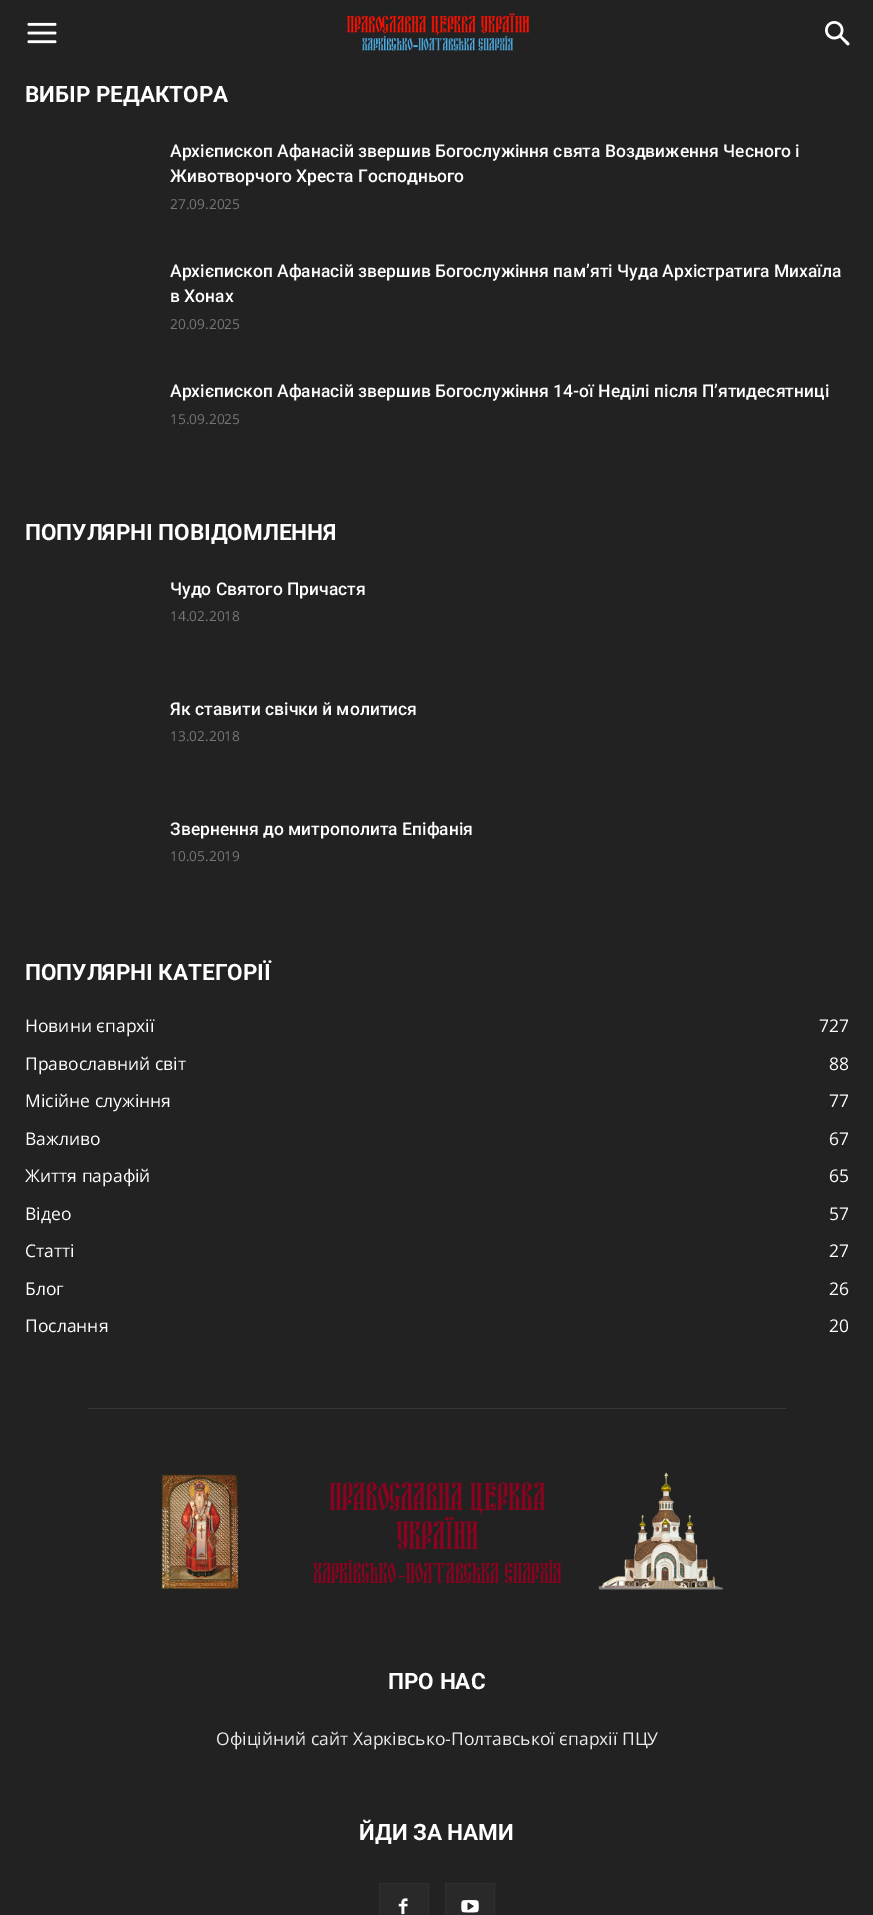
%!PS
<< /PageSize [873 1915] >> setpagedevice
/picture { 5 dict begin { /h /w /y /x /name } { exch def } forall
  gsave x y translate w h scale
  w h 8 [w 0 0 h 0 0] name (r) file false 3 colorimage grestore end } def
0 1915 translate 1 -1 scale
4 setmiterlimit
0.133 setgray
0 0 873 1915 rectfill
(img1.rgb) 27 22 30 22 picture
(img2.rgb) 346 13 184 38 picture
(img3.rgb) 825 21 25 25 picture
/Roboto-Bold [22.5 0 0 -22.5 0 0] selectfont
1 setgray
25 102 moveto (ВИБІР РЕДАКТОРА) show
/Roboto-Medium [17.5 0 0 -17.5 0 0] selectfont
170 157 moveto (Архієпископ Афанасій звершив Богослужіння свята Воздвиження Чесного і) show
170 182 moveto (Животворчого Хреста Господнього) show
/OpenSans-Regular [13.75 0 0 -13.75 0 0] selectfont
0.463 setgray
170 209 moveto (27.09.2025) show
/Roboto-Medium [17.5 0 0 -17.5 0 0] selectfont
1 setgray
170 277 moveto (Архієпископ Афанасій звершив Богослужіння пам’яті Чуда Архістратига Михаїла) show
170 302 moveto (в Хонах) show
/OpenSans-Regular [13.75 0 0 -13.75 0 0] selectfont
0.463 setgray
170 329 moveto (20.09.2025) show
/Roboto-Medium [17.5 0 0 -17.5 0 0] selectfont
1 setgray
170 397 moveto (Архієпископ Афанасій звершив Богослужіння 14-ої Неділі після П’ятидесятниці) show
/OpenSans-Regular [13.75 0 0 -13.75 0 0] selectfont
0.463 setgray
170 424 moveto (15.09.2025) show
/Roboto-Bold [22.5 0 0 -22.5 0 0] selectfont
1 setgray
25 540 moveto (ПОПУЛЯРНІ ПОВІДОМЛЕННЯ) show
/Roboto-Medium [17.5 0 0 -17.5 0 0] selectfont
170 595 moveto (Чудо Святого Причастя) show
/OpenSans-Regular [13.75 0 0 -13.75 0 0] selectfont
0.463 setgray
170 621 moveto (14.02.2018) show
/Roboto-Medium [17.5 0 0 -17.5 0 0] selectfont
1 setgray
170 715 moveto (Як ставити свічки й молитися) show
/OpenSans-Regular [13.75 0 0 -13.75 0 0] selectfont
0.463 setgray
170 741 moveto (13.02.2018) show
/Roboto-Medium [17.5 0 0 -17.5 0 0] selectfont
1 setgray
170 835 moveto (Звернення до митрополита Епіфанія) show
/OpenSans-Regular [13.75 0 0 -13.75 0 0] selectfont
0.463 setgray
170 861 moveto (10.05.2019) show
/Roboto-Bold [22.5 0 0 -22.5 0 0] selectfont
1 setgray
25 980 moveto (ПОПУЛЯРНІ КАТЕГОРІЇ) show
/OpenSans-Regular [17.5 0 0 -17.5 0 0] selectfont
25 1032 moveto (Новини єпархії) show
819 1032 moveto (727) show
25 1070 moveto (Православний світ) show
829 1070 moveto (88) show
25 1107 moveto (Місійне служіння) show
829 1107 moveto (77) show
25 1145 moveto (Важливо) show
829 1145 moveto (67) show
25 1182 moveto (Життя парафій) show
829 1182 moveto (65) show
25 1220 moveto (Відео) show
829 1220 moveto (57) show
25 1257 moveto (Статті) show
829 1257 moveto (27) show
25 1295 moveto (Блог) show
829 1295 moveto (26) show
25 1332 moveto (Послання) show
829 1332 moveto (20) show
0.22 setgray
88 1408 698 1 rectfill
(img4.rgb) 161 1472 562 118 picture
/Roboto-Bold [22.5 0 0 -22.5 0 0] selectfont
1 setgray
388 1689 moveto (ПРО НАС) show
/OpenSans-Regular [17.5 0 0 -17.5 0 0] selectfont
0.918 setgray
216 1745 moveto (Офіційний сайт Харківсько-Полтавської єпархії ПЦУ) show
/Roboto-Bold [22.5 0 0 -22.5 0 0] selectfont
1 setgray
359 1840 moveto (ЙДИ ЗА НАМИ) show
0.161 setgray
380 1884 48 31 rectfill
(img5.rgb) 398 1898 10 17 picture
0.184 setgray
379.5 1883.5 49 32 rectstroke
0.161 setgray
446 1884 48 31 rectfill
(img6.rgb) 461 1900 18 13 picture
0.184 setgray
445.5 1883.5 49 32 rectstroke
showpage
